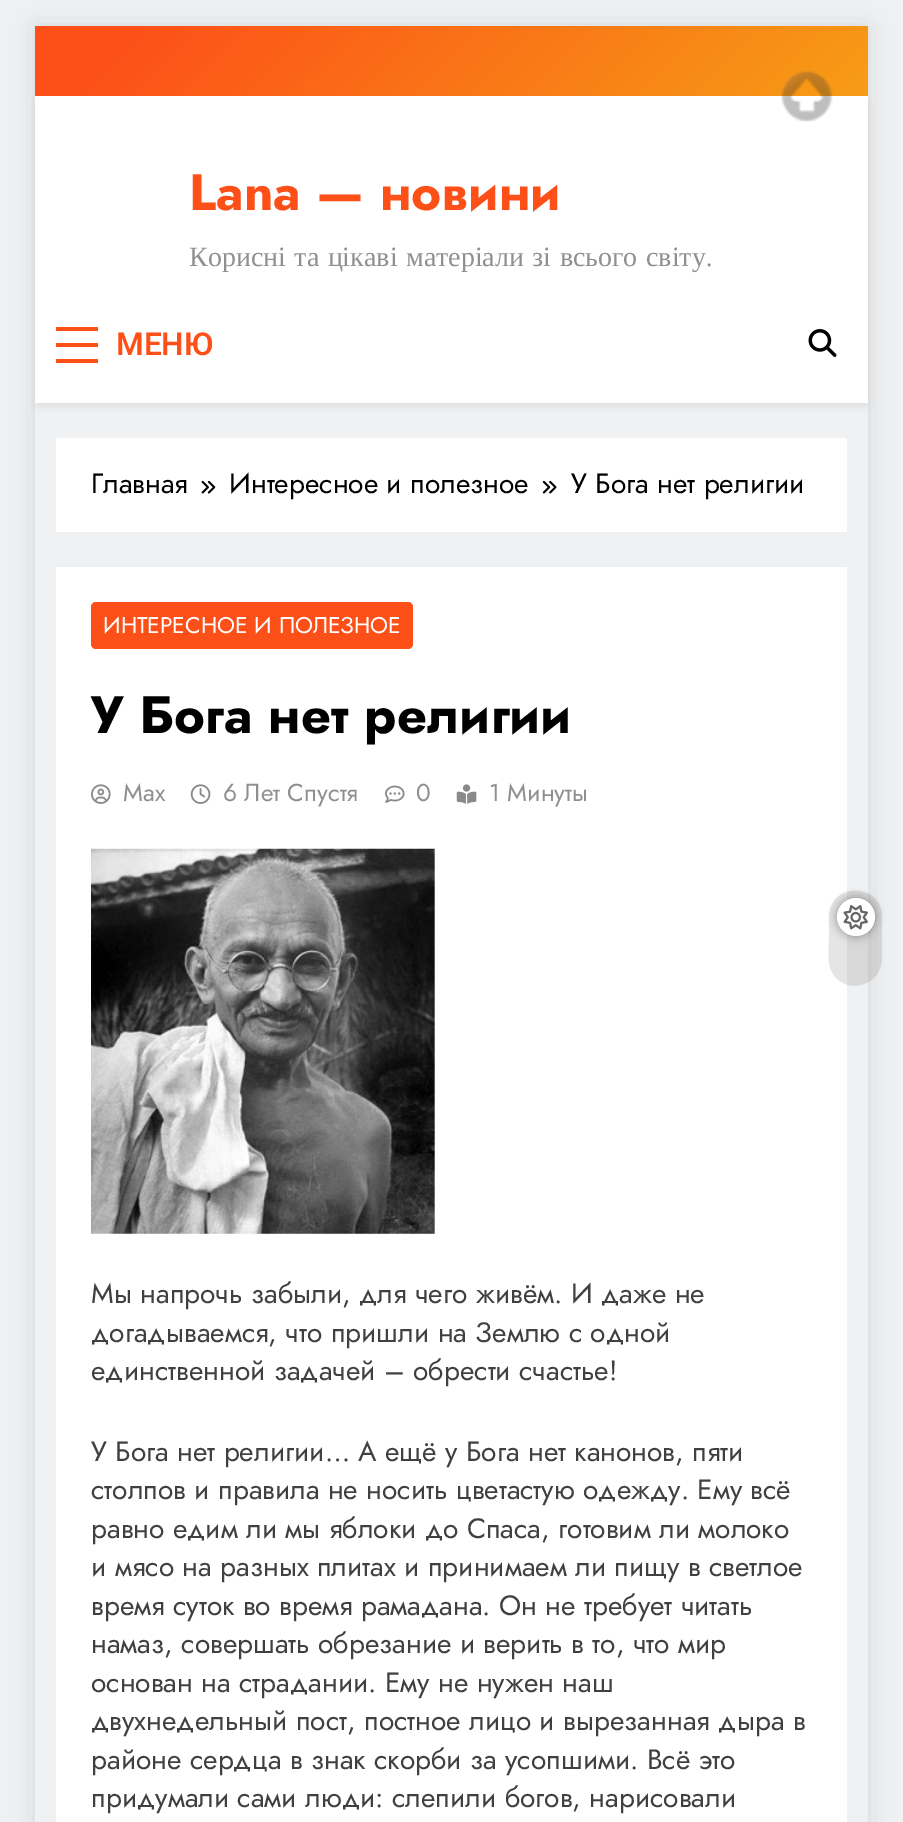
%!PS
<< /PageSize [903 1822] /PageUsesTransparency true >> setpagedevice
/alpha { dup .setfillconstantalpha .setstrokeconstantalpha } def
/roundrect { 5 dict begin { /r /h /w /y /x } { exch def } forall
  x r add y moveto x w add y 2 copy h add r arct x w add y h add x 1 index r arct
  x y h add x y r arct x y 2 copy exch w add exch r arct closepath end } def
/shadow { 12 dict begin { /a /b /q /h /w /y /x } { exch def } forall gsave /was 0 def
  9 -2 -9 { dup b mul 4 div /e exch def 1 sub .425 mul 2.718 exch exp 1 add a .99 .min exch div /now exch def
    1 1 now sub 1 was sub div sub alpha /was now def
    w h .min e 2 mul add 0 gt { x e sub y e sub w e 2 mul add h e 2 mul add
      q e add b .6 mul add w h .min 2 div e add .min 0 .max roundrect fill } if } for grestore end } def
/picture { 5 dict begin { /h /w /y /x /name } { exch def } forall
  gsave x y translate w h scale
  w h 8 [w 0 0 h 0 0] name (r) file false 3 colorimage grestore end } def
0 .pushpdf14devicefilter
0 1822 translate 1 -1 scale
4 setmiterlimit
0.941 0.945 0.949 setrgbcolor
0 0 903 1822 rectfill
gsave
newpath 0 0 moveto 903 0 lineto 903 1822 lineto 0 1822 lineto closepath 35 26 moveto 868 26 lineto 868 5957 lineto 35 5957 lineto closepath eoclip newpath
0 setgray
35 26 833 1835 0 13 0.1 shadow
grestore
gsave newpath 35 26 moveto 868 26 lineto 868 96 lineto 35 96 lineto closepath clip newpath
<< /ShadingType 2 /ColorSpace /DeviceRGB /Coords [226 -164 677 287] /Extend [true true] /Function << /FunctionType 3 /Domain [0 1] /Functions [<< /FunctionType 2 /Domain [0 1] /C0 [0.992 0.31 0.094] /C1 [0.992 0.31 0.094] /N 1 >> << /FunctionType 2 /Domain [0 1] /C0 [0.992 0.31 0.094] /C1 [0.969 0.616 0.086] /N 1 >>] /Bounds [0.1] /Encode [0 1 0 1] >> >> shfill grestore
0 setgray
35 102 833 306 0 3.5 0.05 shadow
1 setgray
35 96 833 307 rectfill
(img1.rgb) 781 70 52 52 picture
/Jost-Bold [51.25 0 0 -51.25 0 0] selectfont
0.992 0.31 0.094 setrgbcolor
189 210 moveto (Lana — новини) show
/LiberationSerif-Regular [28 0 0 -28 0 0] selectfont
0.561 setgray
189 266 moveto 1.5 0 32 (Корисні та цікаві матеріали зі всього світу) widthshow
/Jost-Regular [28 0 0 -28 0 0] selectfont
705 266 moveto (.) show
0.992 0.31 0.094 setrgbcolor
56 327 42 4 rectfill
56 343 42 4 rectfill
56 359 42 4 rectfill
/Roboto-SemiBold [31.5 0 0 -31.5 0 0] selectfont
116 355 moveto (МЕНЮ) show
(img2.rgb) 808 329 29 28 picture
1 setgray
56 567 791 1255 rectfill
0.1 alpha
0 setgray
newpath 882 917 moveto 882 959 lineto 881 988 842 996 831 970 curveto 827 961 829 948 829 938 curveto 829 917 lineto 830 881 882 883 882 917 curveto closepath fill
1 alpha
837 898 38 38 19 4.5 0.35 shadow
1 setgray
newpath 856 917 19 0 360 arc closepath fill
(img3.rgb) 843 905 25 25 picture
56 438 791 94 rectfill
/Jost-Regular [28 0 0 -28 0 0] selectfont
0 setgray
91 493 moveto (Главная) show
(img4.rgb) 201 480 15 14 picture
229 493 moveto (Интересное и полезное) show
(img5.rgb) 542 480 15 14 picture
571 493 moveto (У Бога нет религии) show
0.992 0.31 0.094 setrgbcolor
91 602 322 47 5 roundrect fill
/Jost-Regular [22.75 0 0 -22.75 0 0] selectfont
1 setgray
103 633 moveto (ИНТЕРЕСНОЕ И ПОЛЕЗНОЕ) show
/Jost-Bold [52.5 0 0 -52.5 0 0] selectfont
0 setgray
91 733 moveto (У Бога нет религии) show
(img6.rgb) 91 784 20 20 picture
/Jost-Regular [24.5 0 0 -24.5 0 0] selectfont
0.561 setgray
123 801 moveto (Max) show
(img7.rgb) 190 784 21 20 picture
223 801 moveto (6 Лет Спустя) show
(img8.rgb) 385 785 20 18 picture
416 801 moveto (0) show
(img9.rgb) 456 784 21 20 picture
489 801 moveto (1 Минуты) show
(img10.rgb) 91 848 346 386 picture
/Jost-Regular [28 0 0 -28 0 0] selectfont
0.251 setgray
91 1303 moveto (Мы напрочь забыли, для чего живём. И даже не) show
91 1342 moveto (догадываемся, что пришли на Землю с одной) show
91 1380 moveto (единственной задачей – обрести счастье!) show
91 1461 moveto (У Бога нет религии… А ещё у Бога нет канонов, пяти) show
91 1499 moveto (столпов и правила не носить цветастую одежду. Ему всё) show
91 1538 moveto (равно едим ли мы яблоки до Спаса, готовим ли молоко) show
91 1576 moveto (и мясо на разных плитах и принимаем ли пищу в светлое) show
91 1615 moveto (время суток во время рамадана. Он не требует читать) show
91 1653 moveto (намаз, совершать обрезание и верить в то, что мир) show
91 1692 moveto (основан на страдании. Ему не нужен наш) show
91 1730 moveto (двухнедельный пост, постное лицо и вырезанная дыра в) show
91 1769 moveto (районе сердца в знак скорби за усопшими. Всё это) show
91 1807 moveto (придумали сами люди: слепили богов, нарисовали) show
.poppdf14devicefilter showpage
